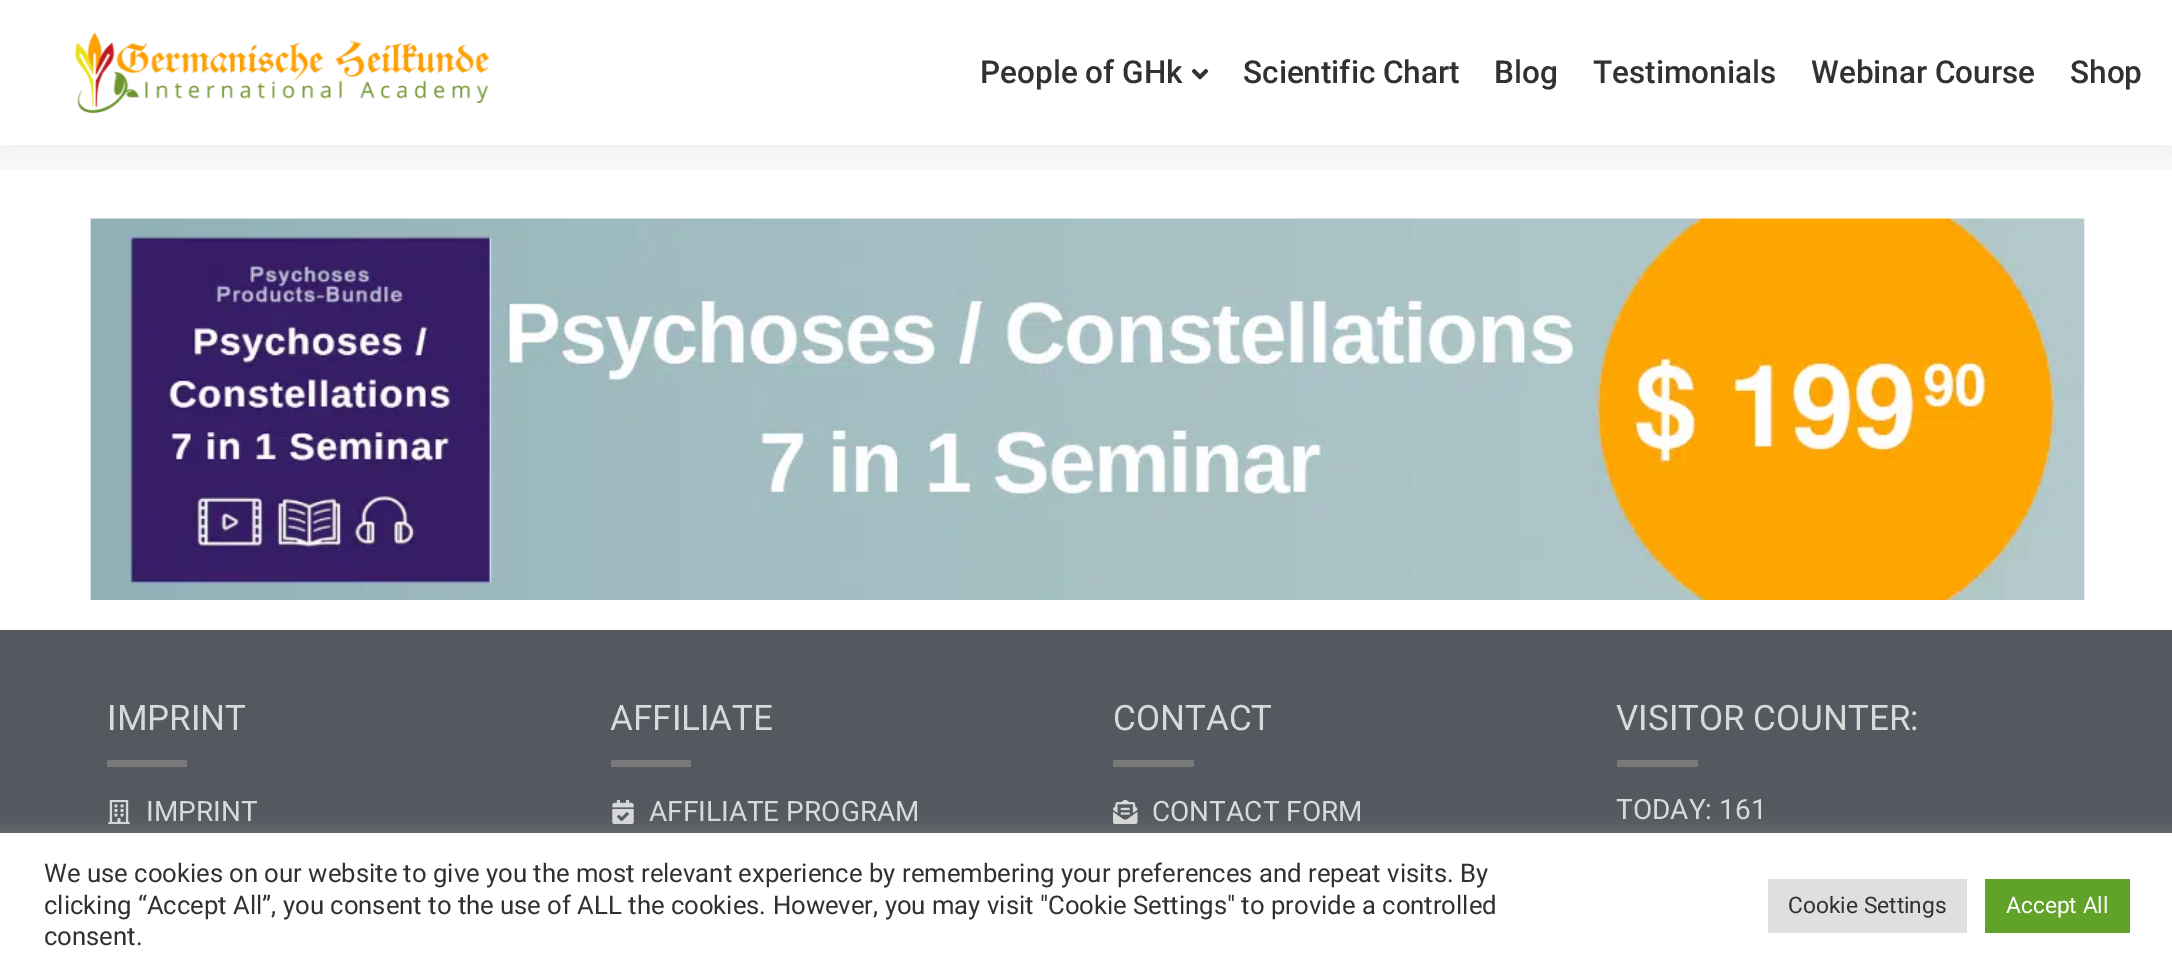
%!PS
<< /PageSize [2172 975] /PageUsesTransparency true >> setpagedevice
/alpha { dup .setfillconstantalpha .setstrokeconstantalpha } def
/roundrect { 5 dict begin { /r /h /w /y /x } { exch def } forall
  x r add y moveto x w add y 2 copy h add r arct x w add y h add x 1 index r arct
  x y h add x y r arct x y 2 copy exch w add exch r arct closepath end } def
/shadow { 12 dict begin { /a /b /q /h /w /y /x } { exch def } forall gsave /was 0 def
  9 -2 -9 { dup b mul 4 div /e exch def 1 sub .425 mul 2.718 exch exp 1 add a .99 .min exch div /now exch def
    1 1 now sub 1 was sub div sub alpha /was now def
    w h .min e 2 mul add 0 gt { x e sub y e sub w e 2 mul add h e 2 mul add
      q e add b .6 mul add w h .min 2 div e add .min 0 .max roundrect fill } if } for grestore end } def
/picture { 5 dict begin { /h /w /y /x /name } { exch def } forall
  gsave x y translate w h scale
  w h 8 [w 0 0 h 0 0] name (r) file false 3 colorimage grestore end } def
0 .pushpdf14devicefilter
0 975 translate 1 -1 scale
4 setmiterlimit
1 setgray
0 0 2172 975 rectfill
(img3.rgb) 90 218 1995 382 picture
gsave
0 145 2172 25 rectclip
0 setgray
-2 5 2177 149 0 29 0.07 shadow
grestore
(img1.rgb) 74 32 416 82 picture
/Roboto-Medium [31.5 0 0 -31.5 0 0] selectfont
0.192 setgray
980 83 moveto (People of GHk) show
(img2.rgb) 1191 68 18 12 picture
1243 83 moveto (Scientific Chart) show
1494 83 moveto (Blog) show
1593 83 moveto (Testimonials) show
1811 83 moveto (Webinar Course) show
2070 83 moveto (Shop) show
0.329 0.349 0.373 setrgbcolor
0 630 2172 203 rectfill
/Roboto-Regular [35 0 0 -35 0 0] selectfont
0.851 setgray
107 730 moveto (IMPRINT) show
0.478 setgray
107 760 80 7 rectfill
(img4.rgb) 108 800 22 24 picture
/Roboto-Regular [28 0 0 -28 0 0] selectfont
0.851 setgray
146 821 moveto (IMPRINT) show
/Roboto-Regular [35 0 0 -35 0 0] selectfont
610 730 moveto (AFFILIATE) show
0.478 setgray
611 760 80 7 rectfill
(img5.rgb) 612 800 22 24 picture
/Roboto-Regular [28 0 0 -28 0 0] selectfont
0.851 setgray
649 821 moveto (AFFILIATE PROGRAM) show
/Roboto-Regular [35 0 0 -35 0 0] selectfont
1113 730 moveto (CONTACT) show
0.478 setgray
1113 760 81 7 rectfill
(img6.rgb) 1113 800 25 24 picture
/Roboto-Regular [28 0 0 -28 0 0] selectfont
0.851 setgray
1152 821 moveto (CONTACT FORM) show
/Roboto-Regular [35 0 0 -35 0 0] selectfont
1616 730 moveto (VISITOR COUNTER:) show
0.478 setgray
1617 760 81 7 rectfill
/Roboto-Regular [28 0 0 -28 0 0] selectfont
0.851 setgray
1616 819 moveto (TODAY: 161) show
0.675 0.671 0.671 setrgbcolor
0 831 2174 144 0 9 0.3 shadow
1 setgray
0 833 2172 142 rectfill
/Roboto-Regular [25.67 0 0 -25.67 0 0] selectfont
0.192 setgray
44 882 moveto (We use cookies on our website to give you the most relevant experience by remembering your preferences and repeat visits. By) show
44 914 moveto (clicking “Accept All”, you consent to the use of ALL the cookies. However, you may visit "Cookie Settings" to provide a controlled) show
44 945 moveto (consent.) show
0.871 0.875 0.878 setrgbcolor
1768 879 199 54 rectfill
/Roboto-Regular [22.75 0 0 -22.75 0 0] selectfont
0.192 setgray
1788 913 moveto (Cookie Settings) show
0.38 0.635 0.161 setrgbcolor
1985 879 145 54 rectfill
1 setgray
2006 913 moveto (Accept All) show
.poppdf14devicefilter showpage
